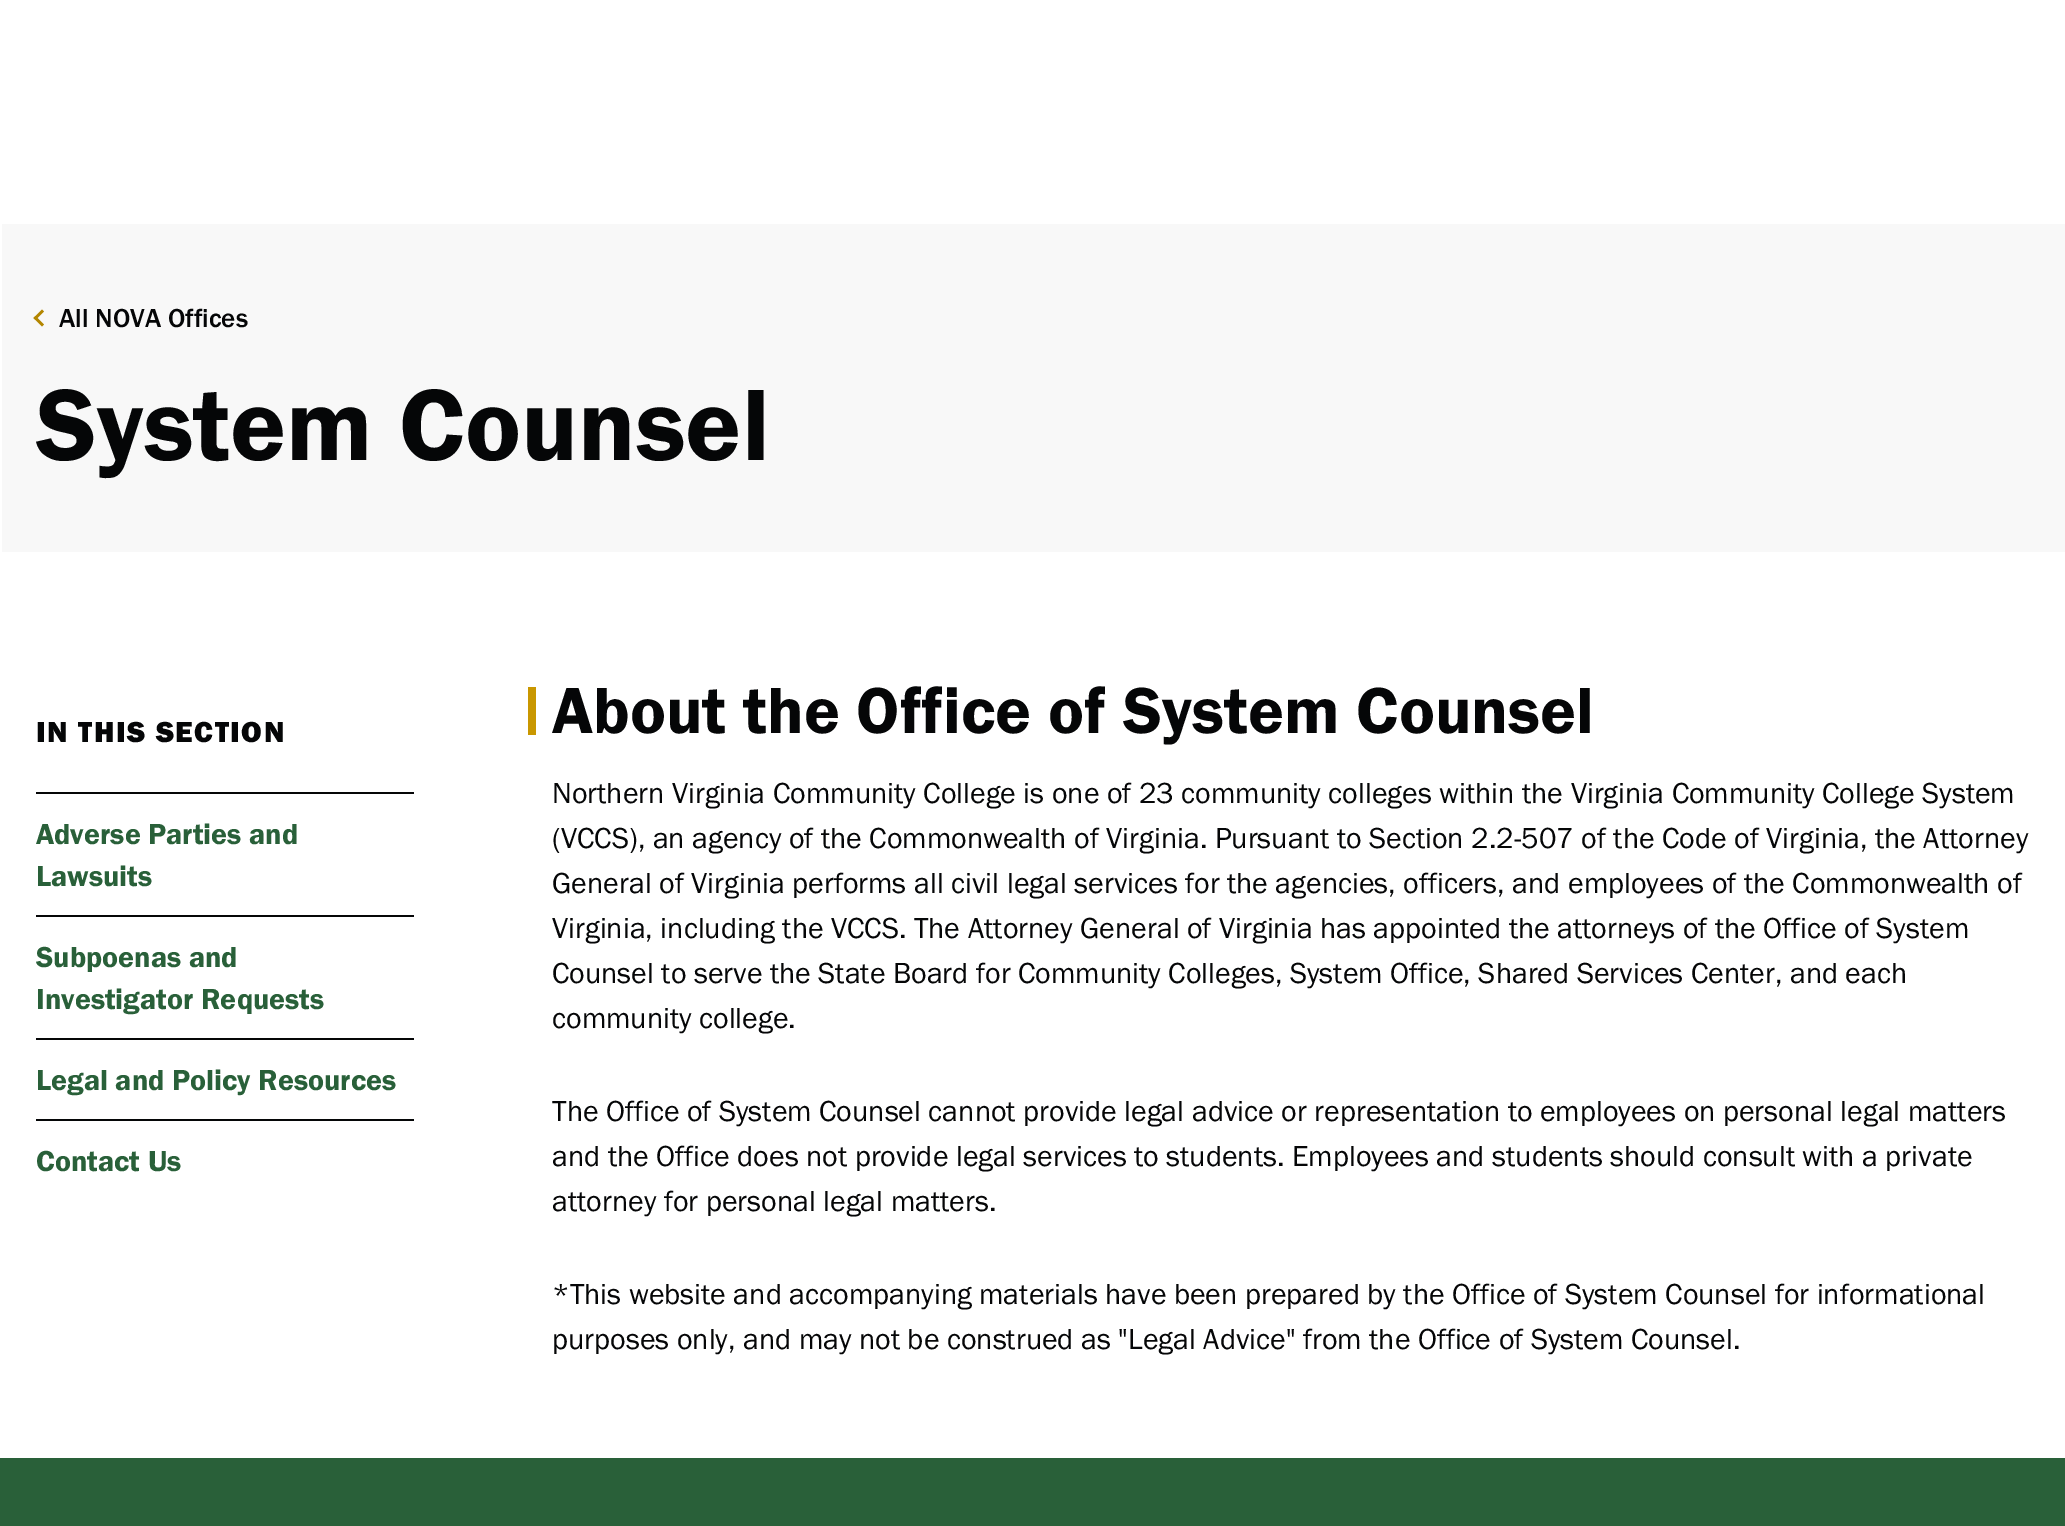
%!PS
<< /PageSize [2065 1526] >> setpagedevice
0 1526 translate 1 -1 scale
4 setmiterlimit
1 setgray
0 0 2065 1526 rectfill
0.973 setgray
2 224 2063 328 rectfill
0.702 0.525 0 setrgbcolor
newpath 33.5 318 moveto 42 309.5 lineto 44 311.5 lineto 35.5 320 lineto closepath fill
newpath 33.5 318 moveto 35.5 316 lineto 44 324.5 lineto 42 326.5 lineto closepath fill
/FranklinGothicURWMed-Regular [27 0 0 -27 0 0] selectfont
0.02 0.024 0.027 setrgbcolor
59 327 moveto (All NOVA Offices) show
/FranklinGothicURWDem-Regular [105 0 0 -105 0 0] selectfont
36 460 moveto (System Counsel) show
/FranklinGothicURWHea-Black [30 0 0 -30 0 0] selectfont
36 742 moveto 1.5 0 (IN THIS SECTION) ashow
36 792 378 2 rectfill
/FranklinGothicURWDem-Regular [30 0 0 -30 0 0] selectfont
0.161 0.376 0.224 setrgbcolor
36 844 moveto (Adverse Parties and) show
36 886 moveto (Lawsuits) show
0.02 0.024 0.027 setrgbcolor
36 915 378 2 rectfill
0.161 0.376 0.224 setrgbcolor
36 967 moveto (Subpoenas and) show
36 1009 moveto (Investigator Requests) show
0.02 0.024 0.027 setrgbcolor
36 1038 378 2 rectfill
0.161 0.376 0.224 setrgbcolor
36 1090 moveto (Legal and Policy Resources) show
0.02 0.024 0.027 setrgbcolor
36 1119 378 2 rectfill
0.161 0.376 0.224 setrgbcolor
36 1171 moveto (Contact Us) show
0.788 0.592 0 setrgbcolor
528 687 8 48 rectfill
/FranklinGothicURWDem-Regular [67.5 0 0 -67.5 0 0] selectfont
0.02 0.024 0.027 setrgbcolor
552 733 moveto (About the Office of System Counsel) show
/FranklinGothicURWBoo-Regular [30 0 0 -30 0 0] selectfont
552 803 moveto (Northern Virginia Community College is one of 23 community colleges within the Virginia Community College System) show
552 848 moveto (\(VCCS\), an agency of the Commonwealth of Virginia. Pursuant to Section 2.2-507 of the Code of Virginia, the Attorney) show
552 893 moveto (General of Virginia performs all civil legal services for the agencies, officers, and employees of the Commonwealth of) show
552 938 moveto (Virginia, including the VCCS. The Attorney General of Virginia has appointed the attorneys of the Office of System) show
552 983 moveto (Counsel to serve the State Board for Community Colleges, System Office, Shared Services Center, and each) show
552 1028 moveto (community college.) show
552 1121 moveto (The Office of System Counsel cannot provide legal advice or representation to employees on personal legal matters) show
552 1166 moveto (and the Office does not provide legal services to students. Employees and students should consult with a private) show
552 1211 moveto (attorney for personal legal matters.) show
552 1304 moveto (*This website and accompanying materials have been prepared by the Office of System Counsel for informational) show
552 1349 moveto (purposes only, and may not be construed as "Legal Advice" from the Office of System Counsel.) show
0.161 0.376 0.224 setrgbcolor
0 1458 2065 68 rectfill
showpage
